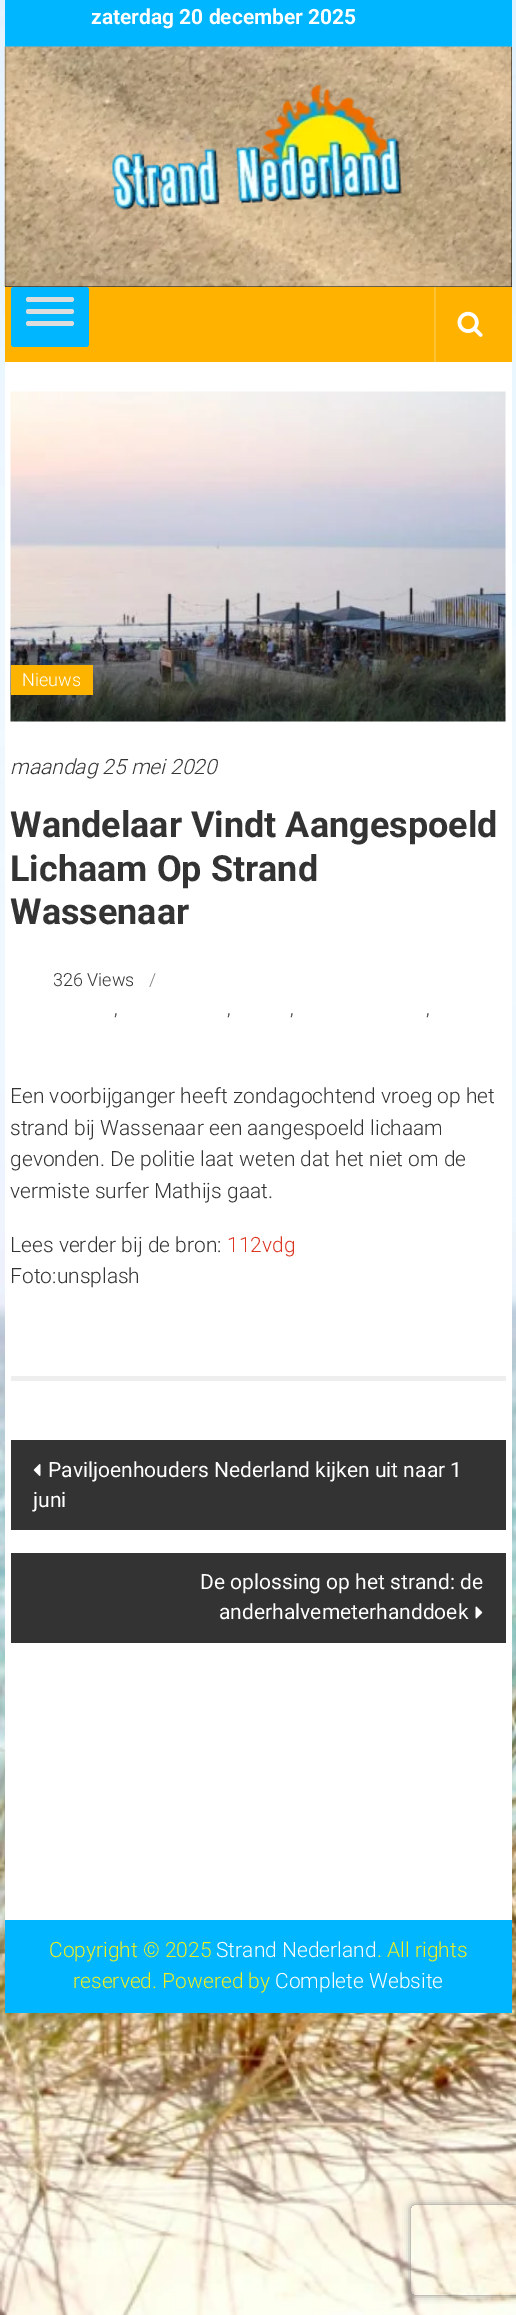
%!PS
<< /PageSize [516 2315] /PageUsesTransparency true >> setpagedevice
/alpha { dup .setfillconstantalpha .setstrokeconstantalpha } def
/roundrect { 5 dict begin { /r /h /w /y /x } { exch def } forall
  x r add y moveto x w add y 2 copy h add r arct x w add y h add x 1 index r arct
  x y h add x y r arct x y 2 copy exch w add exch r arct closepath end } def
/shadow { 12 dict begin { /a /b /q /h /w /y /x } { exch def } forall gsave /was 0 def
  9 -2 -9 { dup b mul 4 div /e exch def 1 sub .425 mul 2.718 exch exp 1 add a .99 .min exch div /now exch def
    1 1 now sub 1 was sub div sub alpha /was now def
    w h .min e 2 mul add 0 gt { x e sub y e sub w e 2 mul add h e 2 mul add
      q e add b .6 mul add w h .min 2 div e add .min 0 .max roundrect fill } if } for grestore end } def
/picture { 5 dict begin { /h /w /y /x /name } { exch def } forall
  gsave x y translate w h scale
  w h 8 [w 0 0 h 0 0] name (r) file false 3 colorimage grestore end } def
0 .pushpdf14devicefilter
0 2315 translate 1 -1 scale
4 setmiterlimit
1 setgray
0 0 516 2315 rectfill
(img1.rgb) 0 0 516 2315 picture
5 362 507 1558 rectfill
0 0.714 1 setrgbcolor
5 0 507 47 rectfill
/Roboto-Bold [21 0 0 -21 0 0] selectfont
1 setgray
91 24 moveto (zaterdag 20 december 2025) show
0 setgray
5 47 507 240 rectfill
(img2.rgb) 4 46 508 241 picture
(img3.rgb) 112 84 291 126 picture
1 0.702 0 setrgbcolor
5 287 507 75 rectfill
0 0.714 1 setrgbcolor
11 287 78 60 3 roundrect fill
0.867 setgray
26 297 48 5 2.5 roundrect fill
26 309 48 5 2.5 roundrect fill
26 321 48 5 2.5 roundrect fill
1 0.761 0.2 setrgbcolor
434 287 2 75 rectfill
(img4.rgb) 457 311 26 26 picture
0.933 setgray
11 1376 495 5 rectfill
(img5.rgb) 10 391 496 331 picture
0.988 0.706 0 setrgbcolor
11 665 82 30 rectfill
/Roboto-Light [18 0 0 -18 0 0] selectfont
1 setgray
22 686 moveto (Nieuws) show
/Roboto-LightItalic [21 0 0 -21 0 0] selectfont
0.2 setgray
10 774 moveto (maandag 25 mei 2020) show
/Roboto-Bold [36 0 0 -36 0 0] selectfont
10 837 moveto (Wandelaar Vindt Aangespoeld) show
10 881 moveto (Lichaam Op Strand) show
10 924 moveto (Wassenaar) show
/Roboto-Light [18 0 0 -18 0 0] selectfont
53 986 moveto (326 Views) show
0.502 setgray
149 986 moveto (/) show
0.2 setgray
114 1015 moveto (,) show
227 1015 moveto (,) show
290 1015 moveto (,) show
426 1015 moveto (,) show
/Roboto-Light [21 0 0 -21 0 0] selectfont
10 1103 moveto (Een voorbijganger heeft zondagochtend vroeg op het) show
10 1135 moveto (strand bij Wassenaar een aangespoeld lichaam) show
10 1166 moveto (gevonden. De politie laat weten dat het niet om de) show
10 1198 moveto (vermiste surfer Mathijs gaat.) show
10 1252 moveto (Lees verder bij de bron:) show
0.863 0.208 0.133 setrgbcolor
227 1252 moveto (112vdg) show
0.2 setgray
10 1283 moveto (Foto:unsplash) show
11 1440 495 90 rectfill
(img6.rgb) 33 1464 8 12 picture
/Roboto-Regular [21 0 0 -21 0 0] selectfont
1 setgray
48 1477 moveto (Paviljoenhouders Nederland kijken uit naar 1) show
33 1507 moveto (juni) show
0.2 setgray
11 1553 495 90 rectfill
1 setgray
200 1589 moveto (De oplossing op het strand: de) show
219 1619 moveto (anderhalvemeterhanddoek) show
(img7.rgb) 475 1606 8 13 picture
0 0.714 1 setrgbcolor
5 1920 507 93 rectfill
/Roboto-Light [21 0 0 -21 0 0] selectfont
0.933 0.933 0.133 setrgbcolor
49 1957 moveto (Copyright © 2025) show
1 setgray
216 1957 moveto (Strand Nederland) show
0.933 0.933 0.133 setrgbcolor
377 1957 moveto (. All rights) show
73 1988 moveto (reserved. Powered by) show
1 setgray
275 1988 moveto (Complete Website) show
gsave
newpath 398 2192 moveto 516 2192 lineto 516 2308 lineto 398 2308 lineto closepath 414 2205 moveto 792 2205 lineto 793.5 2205 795 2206.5 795 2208 curveto 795 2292 lineto 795 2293.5 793.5 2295 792 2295 curveto 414 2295 lineto 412.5 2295 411 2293.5 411 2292 curveto 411 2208 lineto 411 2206.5 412.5 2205 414 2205 curveto closepath eoclip newpath
0.502 setgray
411 2205 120 90 3 4 1 shadow
grestore
.poppdf14devicefilter showpage
